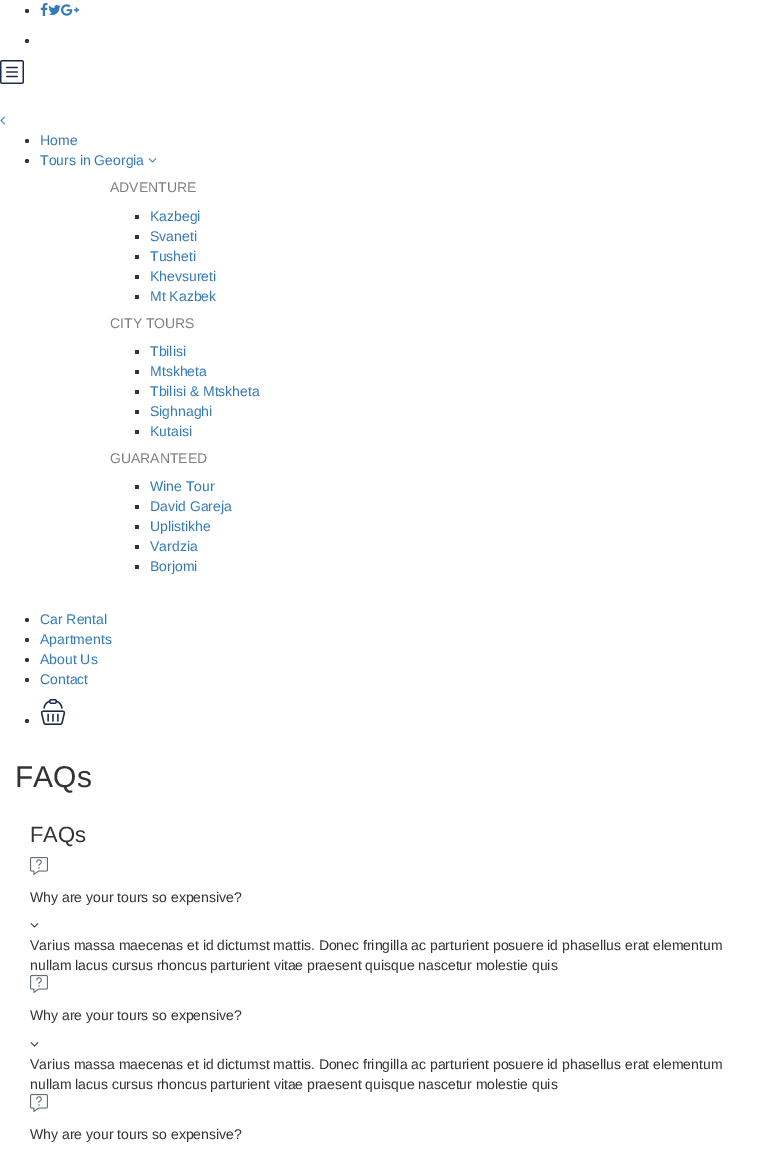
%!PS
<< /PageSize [761 1156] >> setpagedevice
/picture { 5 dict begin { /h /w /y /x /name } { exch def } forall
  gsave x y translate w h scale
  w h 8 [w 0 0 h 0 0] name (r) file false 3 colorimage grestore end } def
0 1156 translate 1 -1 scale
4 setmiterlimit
1 setgray
0 0 761 1156 rectfill
0.2 setgray
newpath 27 11 2 0 360 arc closepath fill
(img1.rgb) 40 3 8 13 picture
(img2.rgb) 48 5 13 10 picture
(img3.rgb) 61 4 18 12 picture
newpath 27 41 2 0 360 arc closepath fill
(img4.rgb) 0 60 24 24 picture
(img5.rgb) 0 116 5 9 picture
newpath 27 141 2 0 360 arc closepath fill
/LiberationSans-Regular [14 0 0 -14 0 0] selectfont
0.2 0.478 0.718 setrgbcolor
40 145 moveto (Home) show
0.2 setgray
newpath 27 161 2 0 360 arc closepath fill
0.2 0.478 0.718 setrgbcolor
40 165 moveto (Tours in Georgia) show
(img6.rgb) 148 158 9 5 picture
0.502 setgray
110 192 moveto (ADVENTURE) show
0.2 setgray
135 215 4 4 rectfill
0.2 0.478 0.718 setrgbcolor
150 221 moveto (Kazbegi) show
0.2 setgray
135 235 4 4 rectfill
0.2 0.478 0.718 setrgbcolor
150 241 moveto (Svaneti) show
0.2 setgray
135 255 4 4 rectfill
0.2 0.478 0.718 setrgbcolor
150 261 moveto (Tusheti) show
0.2 setgray
135 275 4 4 rectfill
0.2 0.478 0.718 setrgbcolor
150 281 moveto (Khevsureti) show
0.2 setgray
135 295 4 4 rectfill
0.2 0.478 0.718 setrgbcolor
150 301 moveto (Mt Kazbek) show
0.502 setgray
110 328 moveto (CITY TOURS) show
0.2 setgray
135 350 4 4 rectfill
0.2 0.478 0.718 setrgbcolor
150 356 moveto (Tbilisi) show
0.2 setgray
135 370 4 4 rectfill
0.2 0.478 0.718 setrgbcolor
150 376 moveto (Mtskheta) show
0.2 setgray
135 390 4 4 rectfill
0.2 0.478 0.718 setrgbcolor
150 396 moveto (Tbilisi & Mtskheta) show
0.2 setgray
135 410 4 4 rectfill
0.2 0.478 0.718 setrgbcolor
150 416 moveto (Sighnaghi) show
0.2 setgray
135 430 4 4 rectfill
0.2 0.478 0.718 setrgbcolor
150 436 moveto (Kutaisi) show
0.502 setgray
110 463 moveto (GUARANTEED) show
0.2 setgray
135 485 4 4 rectfill
0.2 0.478 0.718 setrgbcolor
150 491 moveto (Wine Tour) show
0.2 setgray
135 505 4 4 rectfill
0.2 0.478 0.718 setrgbcolor
150 511 moveto (David Gareja) show
0.2 setgray
135 525 4 4 rectfill
0.2 0.478 0.718 setrgbcolor
150 531 moveto (Uplistikhe) show
0.2 setgray
135 545 4 4 rectfill
0.2 0.478 0.718 setrgbcolor
150 551 moveto (Vardzia) show
0.2 setgray
135 565 4 4 rectfill
0.2 0.478 0.718 setrgbcolor
150 571 moveto (Borjomi) show
0.2 setgray
newpath 27 620 2 0 360 arc closepath fill
0.2 0.478 0.718 setrgbcolor
40 624 moveto (Car Rental) show
0.2 setgray
newpath 27 640 2 0 360 arc closepath fill
0.2 0.478 0.718 setrgbcolor
40 644 moveto (Apartments) show
0.2 setgray
newpath 27 660 2 0 360 arc closepath fill
0.2 0.478 0.718 setrgbcolor
40 664 moveto (About Us) show
0.2 setgray
newpath 27 680 2 0 360 arc closepath fill
0.2 0.478 0.718 setrgbcolor
40 684 moveto (Contact) show
0.2 setgray
newpath 27 721 2 0 360 arc closepath fill
(img7.rgb) 40 699 26 26 picture
/LiberationSans-Regular [30 0 0 -30 0 0] selectfont
15 787 moveto (FAQs) show
/LiberationSans-Regular [22 0 0 -22 0 0] selectfont
30 842 moveto (FAQs) show
(img8.rgb) 30 857 18 18 picture
/LiberationSans-Regular [14 0 0 -14 0 0] selectfont
30 902 moveto (Why are your tours so expensive?) show
(img9.rgb) 30 923 9 5 picture
30 950 moveto (Varius massa maecenas et id dictumst mattis. Donec fringilla ac parturient posuere id phasellus erat elementum) show
30 970 moveto (nullam lacus cursus rhoncus parturient vitae praesent quisque nascetur molestie quis) show
(img8.rgb) 30 975 18 18 picture
30 1020 moveto (Why are your tours so expensive?) show
(img9.rgb) 30 1042 9 5 picture
30 1069 moveto (Varius massa maecenas et id dictumst mattis. Donec fringilla ac parturient posuere id phasellus erat elementum) show
30 1089 moveto (nullam lacus cursus rhoncus parturient vitae praesent quisque nascetur molestie quis) show
(img8.rgb) 30 1094 18 18 picture
30 1139 moveto (Why are your tours so expensive?) show
showpage
